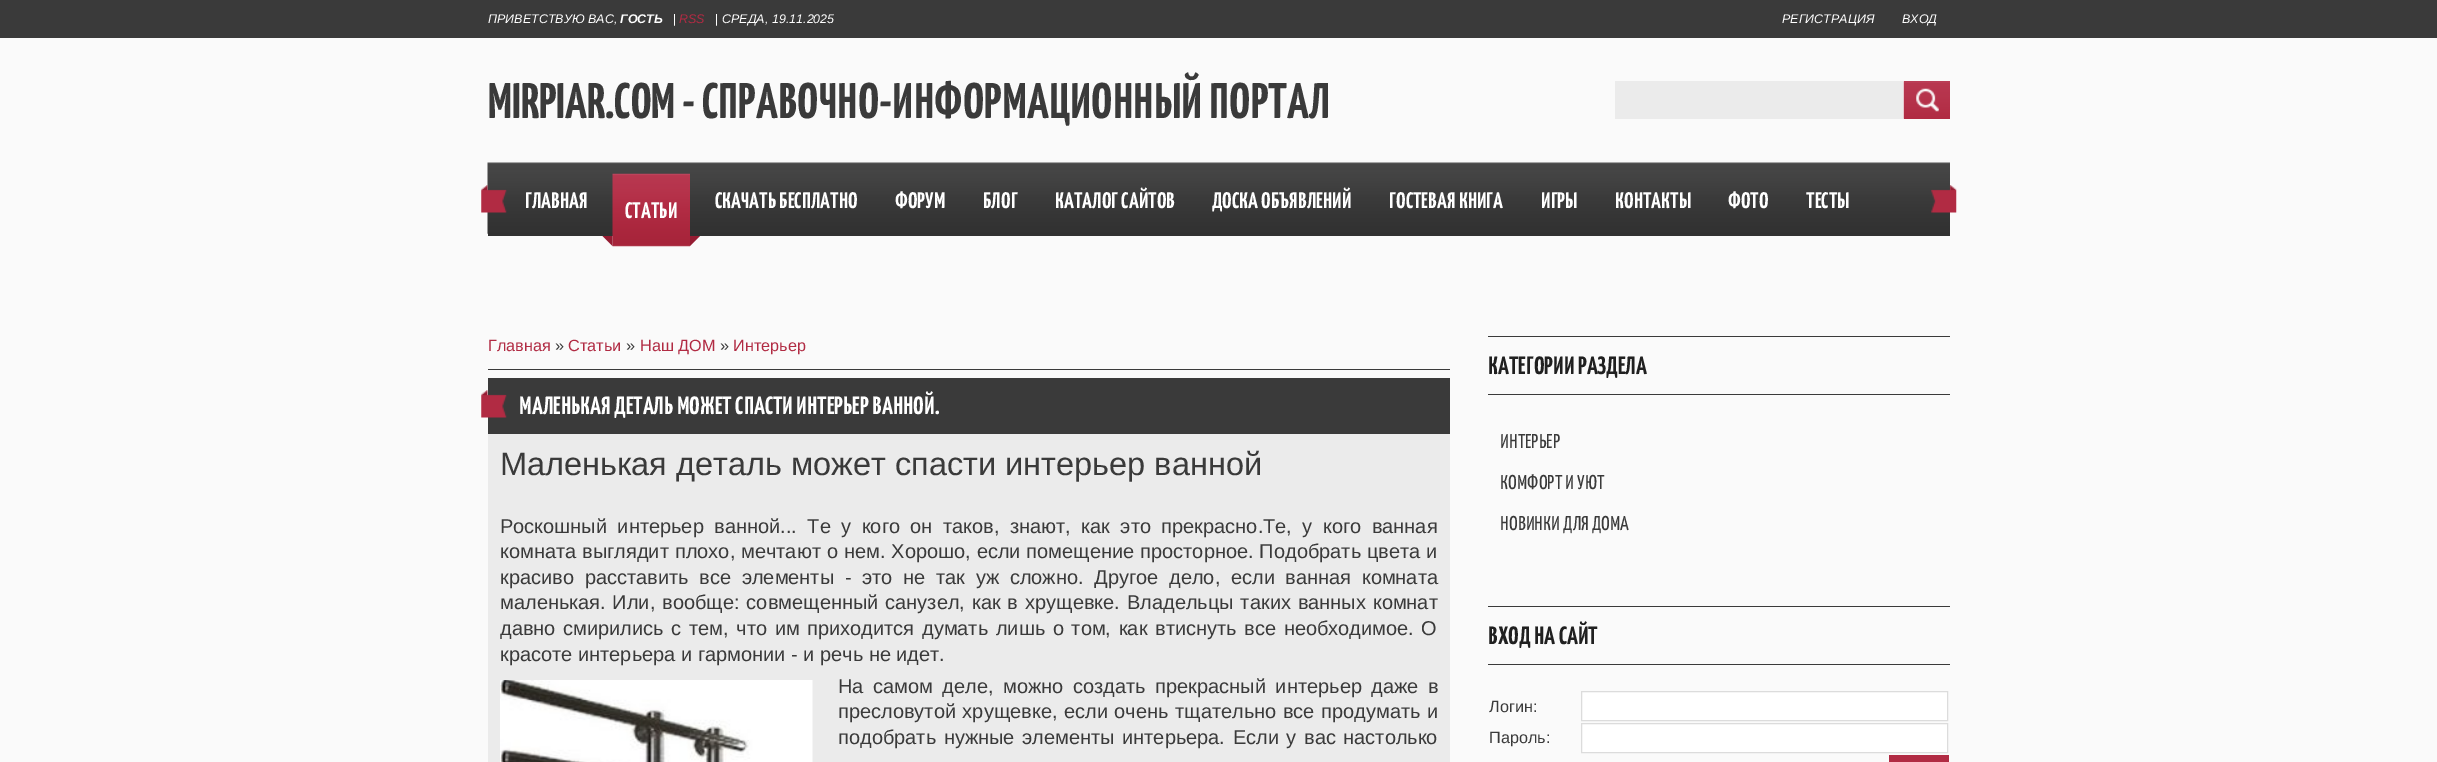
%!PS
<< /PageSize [2437 762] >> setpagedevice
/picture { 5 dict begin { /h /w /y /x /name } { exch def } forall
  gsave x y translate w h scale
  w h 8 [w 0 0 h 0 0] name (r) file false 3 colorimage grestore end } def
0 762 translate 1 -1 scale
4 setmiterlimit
0.98 setgray
0 0 2437 762 rectfill
0.227 setgray
0 0 2437 38 rectfill
/LiberationSans-Italic [12.5 0 0 -12.5 0 0] selectfont
1 setgray
488 23 moveto (ПРИВЕТСТВУЮ ВАС,) show
/LiberationSans-BoldItalic [12.5 0 0 -12.5 0 0] selectfont
620 23 moveto (ГОСТЬ) show
/LiberationSans-Regular [12.5 0 0 -12.5 0 0] selectfont
673 23 moveto (|) show
/LiberationSans-Italic [12.5 0 0 -12.5 0 0] selectfont
0.694 0.169 0.263 setrgbcolor
679 23 moveto (RSS) show
/LiberationSans-Regular [12.5 0 0 -12.5 0 0] selectfont
1 setgray
715 23 moveto (|) show
/LiberationSans-Italic [12.5 0 0 -12.5 0 0] selectfont
722 23 moveto (СРЕДА, 19.11.2025) show
1782 23 moveto (РЕГИСТРАЦИЯ) show
1902 23 moveto (ВХОД) show
/YanoneKaffeesatz-Bold [50 0 0 -50 0 0] selectfont
0.227 setgray
488 118 moveto (MIRPIAR.COM - СПРАВОЧНО-ИНФОРМАЦИОННЫЙ ПОРТАЛ) show
0.922 setgray
1615 81 288 38 rectfill
(img1.rgb) 1903 81 47 38 picture
(img2.rgb) 1916 88 23 24 picture
0.192 setgray
488 233 1462 3 rectfill
(img3.rgb) 487 162 1463 72 picture
(img4.rgb) 481 185 26 28 picture
/YanoneKaffeesatz-Bold [22.5 0 0 -22.5 0 0] selectfont
1 setgray
525 208 moveto (ГЛАВНАЯ) show
(img5.rgb) 612 173 78 74 picture
625 218 moveto (СТАТЬИ) show
0.584 0.11 0.196 setrgbcolor
newpath 602.5 236 moveto 612.5 236 lineto 612.5 246 lineto closepath fill
newpath 690 236 moveto 700 236 lineto 690 246 lineto closepath fill
1 setgray
715 208 moveto (СКАЧАТЬ БЕСПЛАТНО) show
895 208 moveto (ФОРУМ) show
983 208 moveto (БЛОГ) show
1055 208 moveto (КАТАЛОГ САЙТОВ) show
1212 208 moveto (ДОСКА ОБЪЯВЛЕНИЙ) show
1389 208 moveto (ГОСТЕВАЯ КНИГА) show
1541 208 moveto (ИГРЫ) show
1615 208 moveto (КОНТАКТЫ) show
1728 208 moveto (ФОТО) show
1806 208 moveto (ТЕСТЫ) show
(img6.rgb) 1931 185 26 28 picture
/LiberationSans-Regular [16.25 0 0 -16.25 0 0] selectfont
0.694 0.169 0.263 setrgbcolor
488 351 moveto (Главная) show
0.227 setgray
555 351 moveto (») show
0.694 0.169 0.263 setrgbcolor
568 351 moveto (Статьи) show
0.227 setgray
626 351 moveto (») show
0.694 0.169 0.263 setrgbcolor
640 351 moveto (Наш ДОМ) show
0.227 setgray
720 351 moveto (») show
0.694 0.169 0.263 setrgbcolor
733 351 moveto (Интерьер) show
0.227 setgray
488 369 962 1 rectfill
488 378 962 56 rectfill
(img7.rgb) 481 390 26 28 picture
/YanoneKaffeesatz-Bold [25 0 0 -25 0 0] selectfont
1 setgray
519 414 moveto (МАЛЕНЬКАЯ ДЕТАЛЬ МОЖЕТ СПАСТИ ИНТЕРЬЕР ВАННОЙ.) show
0.922 setgray
488 434 962 328 rectfill
/LiberationSans-Regular [32.5 0 0 -32.5 0 0] selectfont
0.227 setgray
500 475 moveto (Маленькая деталь может спасти интерьер ванной) show
/LiberationSans-Regular [20 0 0 -20 0 0] selectfont
500 533 moveto 4.9 0 32 (Роскошный интерьер ванной... Те у кого он таков, знают, как это прекрасно.Те, у кого ванная) widthshow
500 558 moveto 0.4 0 32 (комната выглядит плохо, мечтают о нем. Хорошо, если помещение просторное. Подобрать цвета и) widthshow
500 584 moveto 5.1 0 32 (красиво расставить все элементы - это не так уж сложно. Другое дело, если ванная комната) widthshow
500 609 moveto 1.4 0 32 (маленькая. Или, вообще: совмещенный санузел, как в хрущевке. Владельцы таких ванных комнат) widthshow
500 635 moveto 2.1 0 32 (давно смирились с тем, что им приходится думать лишь о том, как втиснуть все необходимое. О) widthshow
500 661 moveto (красоте интерьера и гармонии - и речь не идет.) show
(img8.rgb) 500 680 313 82 picture
838 693 moveto 4 0 32 (На самом деле, можно создать прекрасный интерьер даже в) widthshow
838 718 moveto 1 0 32 (пресловутой хрущевке, если очень тщательно все продумать и) widthshow
838 744 moveto 2 0 32 (подобрать нужные элементы интерьера. Если у вас настолько) widthshow
1488 336 462 1 rectfill
1488 394 462 1 rectfill
/YanoneKaffeesatz-Bold [25 0 0 -25 0 0] selectfont
0.125 setgray
1488 374 moveto (КАТЕГОРИИ РАЗДЕЛА) show
/YanoneKaffeesatz-Regular [20 0 0 -20 0 0] selectfont
0.227 setgray
1500 448 moveto (ИНТЕРЬЕР) show
1500 489 moveto (КОМФОРТ И УЮТ) show
1500 530 moveto (НОВИНКИ ДЛЯ ДОМА) show
1488 606 462 1 rectfill
1488 664 462 1 rectfill
/YanoneKaffeesatz-Bold [25 0 0 -25 0 0] selectfont
0.125 setgray
1488 644 moveto (ВХОД НА САЙТ) show
/LiberationSans-Regular [16.25 0 0 -16.25 0 0] selectfont
0.227 setgray
1489 712 moveto (Логин:) show
1 setgray
newpath 1581.5 691.5 moveto 1947.5 691.5 lineto 1947.5 720.5 lineto 1581.5 720.5 lineto closepath gsave fill grestore
0.863 setgray
stroke
0.227 setgray
1489 743 moveto (Пароль:) show
1 setgray
newpath 1581.5 723.5 moveto 1947.5 723.5 lineto 1947.5 752.5 lineto 1581.5 752.5 lineto closepath gsave fill grestore
0.863 setgray
stroke
0.694 0.169 0.263 setrgbcolor
1889 755 60 7 rectfill
showpage
